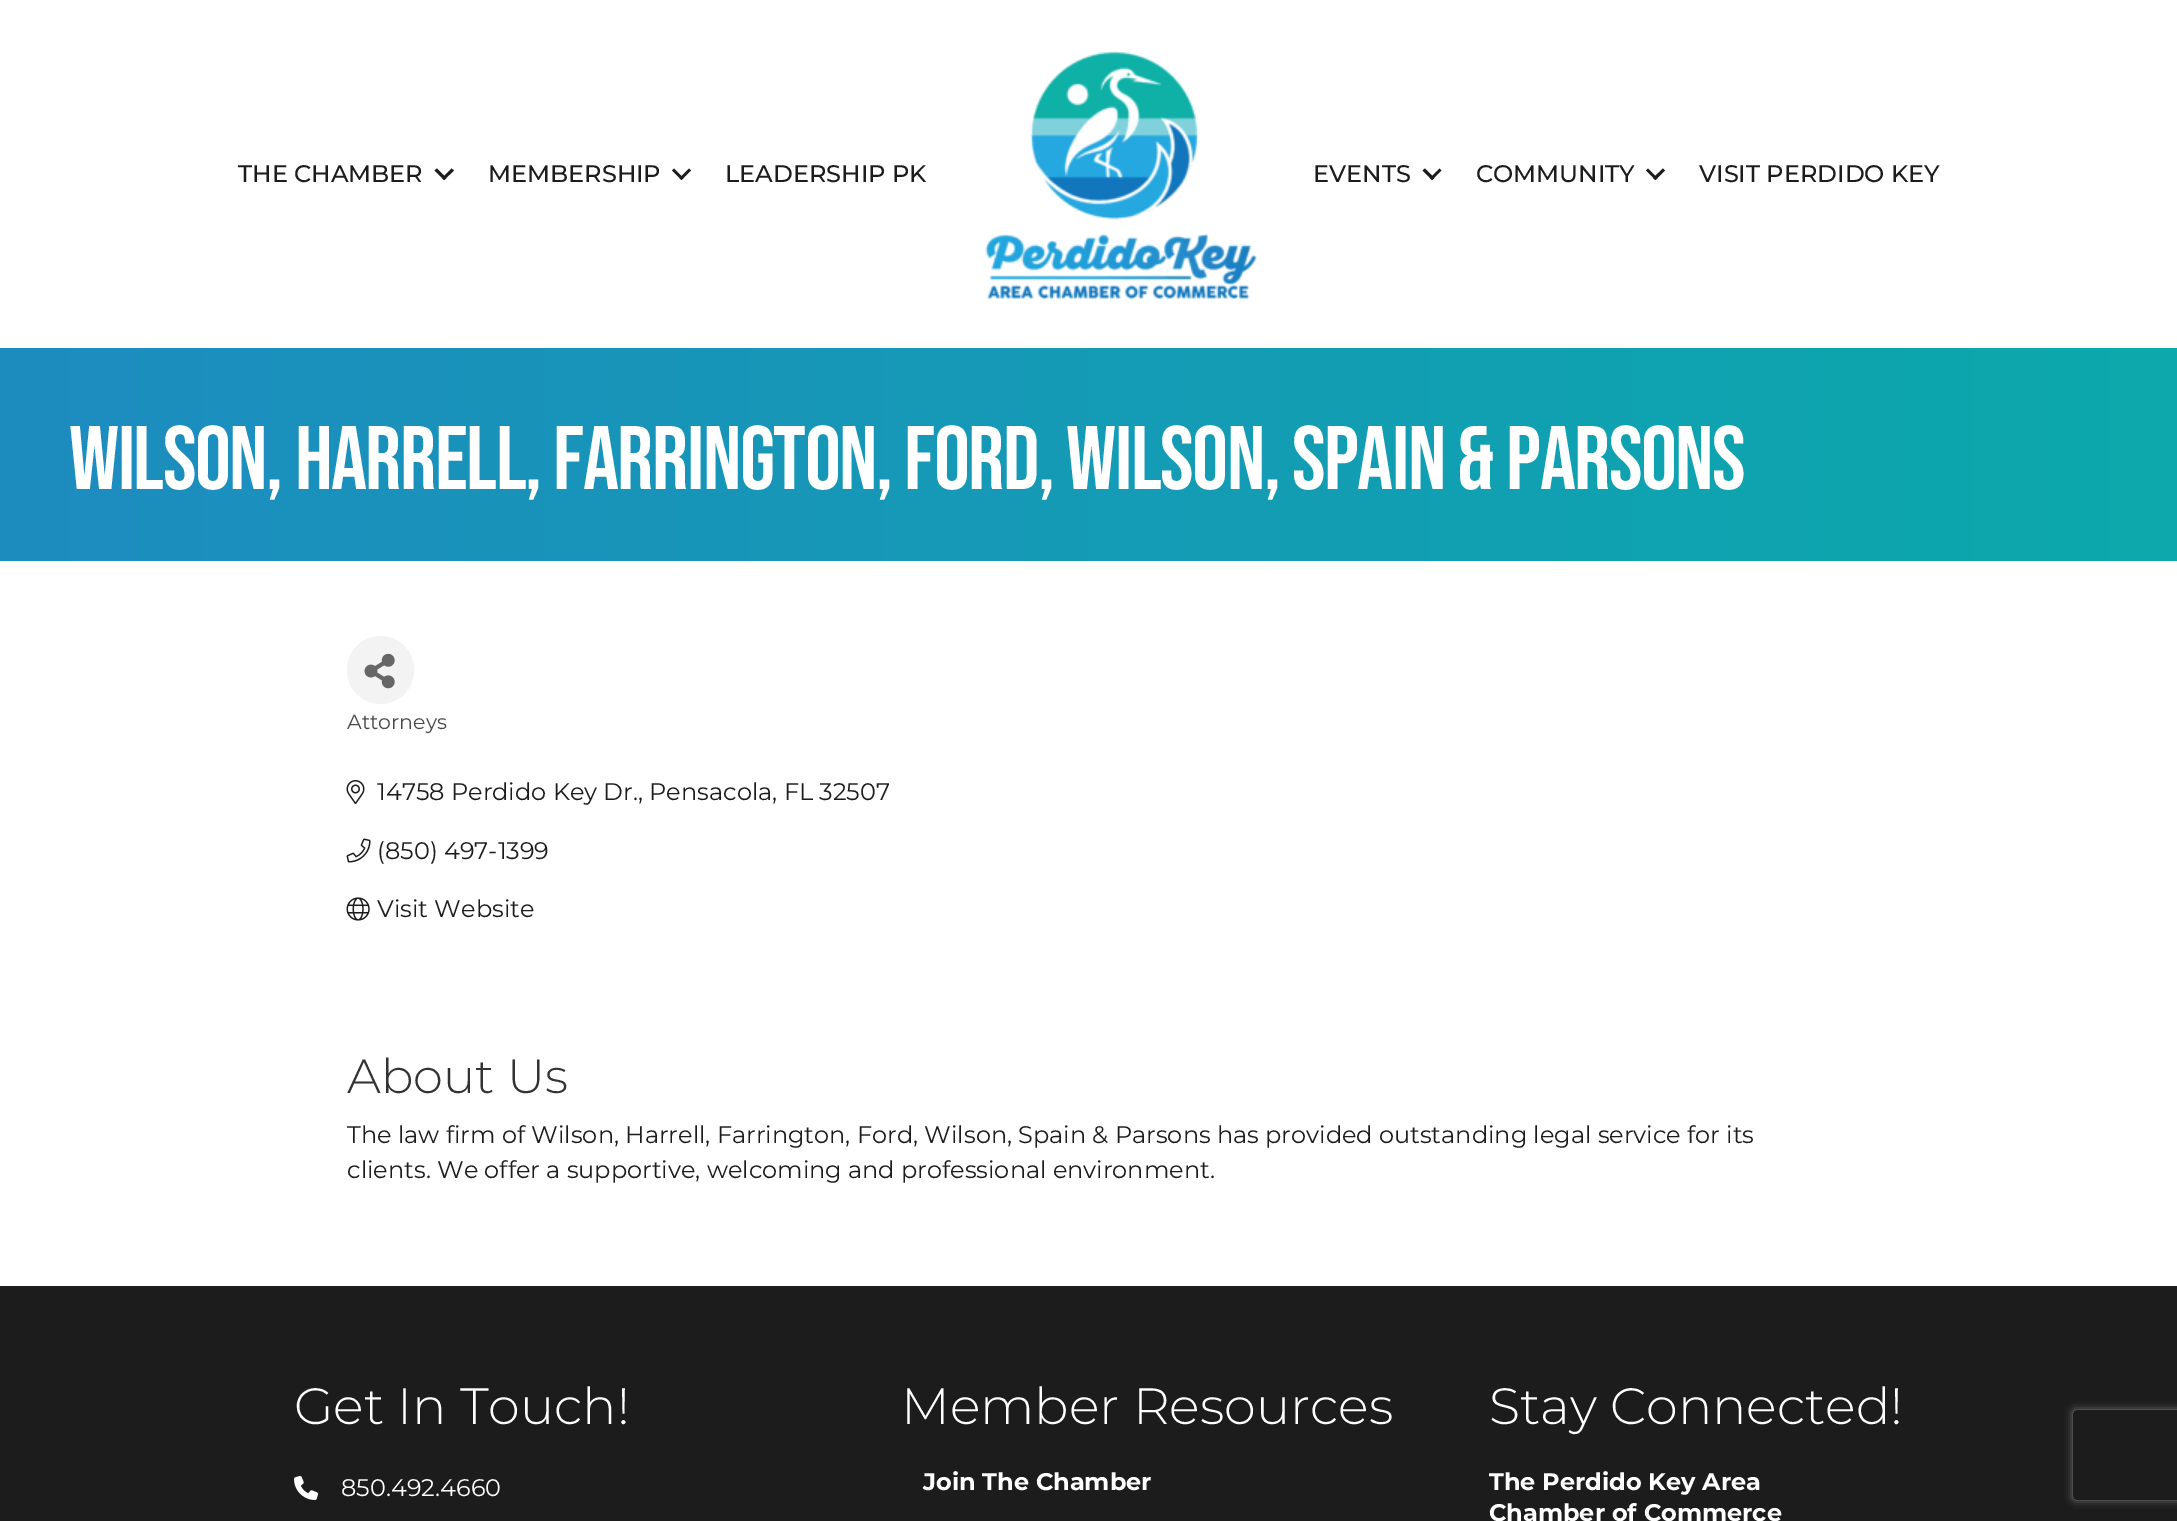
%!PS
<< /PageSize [2177 1521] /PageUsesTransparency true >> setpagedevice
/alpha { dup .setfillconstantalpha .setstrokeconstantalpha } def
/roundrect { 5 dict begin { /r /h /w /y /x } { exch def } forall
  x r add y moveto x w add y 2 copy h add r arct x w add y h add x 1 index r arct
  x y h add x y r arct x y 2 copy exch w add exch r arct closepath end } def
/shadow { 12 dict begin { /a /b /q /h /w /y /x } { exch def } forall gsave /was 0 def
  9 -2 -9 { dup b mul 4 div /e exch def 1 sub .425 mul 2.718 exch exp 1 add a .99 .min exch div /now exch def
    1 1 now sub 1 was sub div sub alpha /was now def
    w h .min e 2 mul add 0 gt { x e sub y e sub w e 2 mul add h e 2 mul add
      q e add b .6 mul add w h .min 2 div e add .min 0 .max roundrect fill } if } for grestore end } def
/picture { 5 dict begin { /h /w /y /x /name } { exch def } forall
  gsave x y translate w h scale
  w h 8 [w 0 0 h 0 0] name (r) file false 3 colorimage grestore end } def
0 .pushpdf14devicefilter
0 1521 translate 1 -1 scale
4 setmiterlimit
1 setgray
0 0 2177 1521 rectfill
/Montserrat-Medium [24 0 0 -24 0 0] selectfont
0.11 setgray
238 182 moveto (THE CHAMBER) show
newpath 451.5 168.5 moveto 454 170.5 lineto 444 180 lineto 442 178 lineto closepath fill
newpath 437 168.5 moveto 446.5 178 lineto 444 180 lineto 434.5 170.5 lineto closepath fill
488 182 moveto (MEMBERSHIP) show
newpath 689 168.5 moveto 691 170.5 lineto 681.5 180 lineto 679.5 178 lineto closepath fill
newpath 674 168.5 moveto 683.5 178 lineto 681.5 180 lineto 672 170.5 lineto closepath fill
725 182 moveto (LEADERSHIP PK) show
(img1.rgb) 985 51 273 249 picture
1313 182 moveto (EVENTS) show
newpath 1439.5 168.5 moveto 1441.5 170.5 lineto 1432 180 lineto 1430 178 lineto closepath fill
newpath 1425 168.5 moveto 1434.5 178 lineto 1432 180 lineto 1422.5 170.5 lineto closepath fill
1476 182 moveto (COMMUNITY) show
newpath 1663 168.5 moveto 1665 170.5 lineto 1655.5 180 lineto 1653 178 lineto closepath fill
newpath 1648 168.5 moveto 1657.5 178 lineto 1655.5 180 lineto 1646 170.5 lineto closepath fill
1699 182 moveto (VISIT PERDIDO KEY) show
gsave newpath 0 348 moveto 2177 348 lineto 2177 561 lineto 0 561 lineto closepath clip newpath
<< /ShadingType 2 /ColorSpace /DeviceRGB /Coords [0 455 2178 454] /Extend [true true] /Function << /FunctionType 2 /Domain [0 1] /C0 [0.114 0.549 0.749] /C1 [0.047 0.663 0.675] /N 1 >> >> shfill grestore
/BebasNeue-Regular [90 0 0 -90 0 0] selectfont
1 setgray
69 489 moveto -1.5 0 (Wilson, Harrell, Farrington, Ford, Wilson, Spain & Parsons) ashow
0.953 setgray
347 636 67 68 33.5 roundrect fill
(img2.rgb) 364 653 31 36 picture
/Montserrat-Regular [20.5 0 0 -20.5 0 0] selectfont
0.286 setgray
347 729 moveto (Attorneys) show
(img3.rgb) 346 780 19 24 picture
/Montserrat-Regular [24 0 0 -24 0 0] selectfont
0.11 setgray
377 800 moveto (14758 Perdido Key Dr., Pensacola, FL 32507) show
(img4.rgb) 346 838 25 25 picture
377 859 moveto (\(850\) 497-1399) show
(img5.rgb) 346 897 24 24 picture
377 917 moveto (Visit Website) show
/Montserrat-Light [48 0 0 -48 0 0] selectfont
0.2 setgray
347 1093 moveto (About Us) show
/Montserrat-Regular [24 0 0 -24 0 0] selectfont
0.11 setgray
347 1143 moveto (The law firm of Wilson, Harrell, Farrington, Ford, Wilson, Spain & Parsons has provided outstanding legal service for its) show
347 1178 moveto (clients. We offer a supportive, welcoming and professional environment.) show
0 1286 2177 235 rectfill
/Montserrat-Light [51 0 0 -51 0 0] selectfont
1 setgray
294 1424 moveto (Get In Touch!) show
(img6.rgb) 294 1476 24 24 picture
/Montserrat-Regular [24 0 0 -24 0 0] selectfont
341 1496 moveto (850.492.4660) show
/Montserrat-Light [51 0 0 -51 0 0] selectfont
901 1424 moveto (Member Resources) show
/Montserrat-Bold [24 0 0 -24 0 0] selectfont
923 1490 moveto (Join The Chamber) show
/Montserrat-Light [51 0 0 -51 0 0] selectfont
1489 1424 moveto (Stay Connected!) show
/Montserrat-Bold [24 0 0 -24 0 0] selectfont
1489 1490 moveto (The Perdido Key Area) show
1489 1521 moveto (Chamber of Commerce) show
gsave
newpath 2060 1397 moveto 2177 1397 lineto 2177 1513 lineto 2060 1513 lineto closepath 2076 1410 moveto 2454 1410 lineto 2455.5 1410 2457 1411.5 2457 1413 curveto 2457 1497 lineto 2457 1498.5 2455.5 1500 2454 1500 curveto 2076 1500 lineto 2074.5 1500 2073 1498.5 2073 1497 curveto 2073 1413 lineto 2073 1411.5 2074.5 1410 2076 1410 curveto closepath eoclip newpath
0.502 setgray
2073 1410 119 90 3 4 1 shadow
grestore
.poppdf14devicefilter showpage
